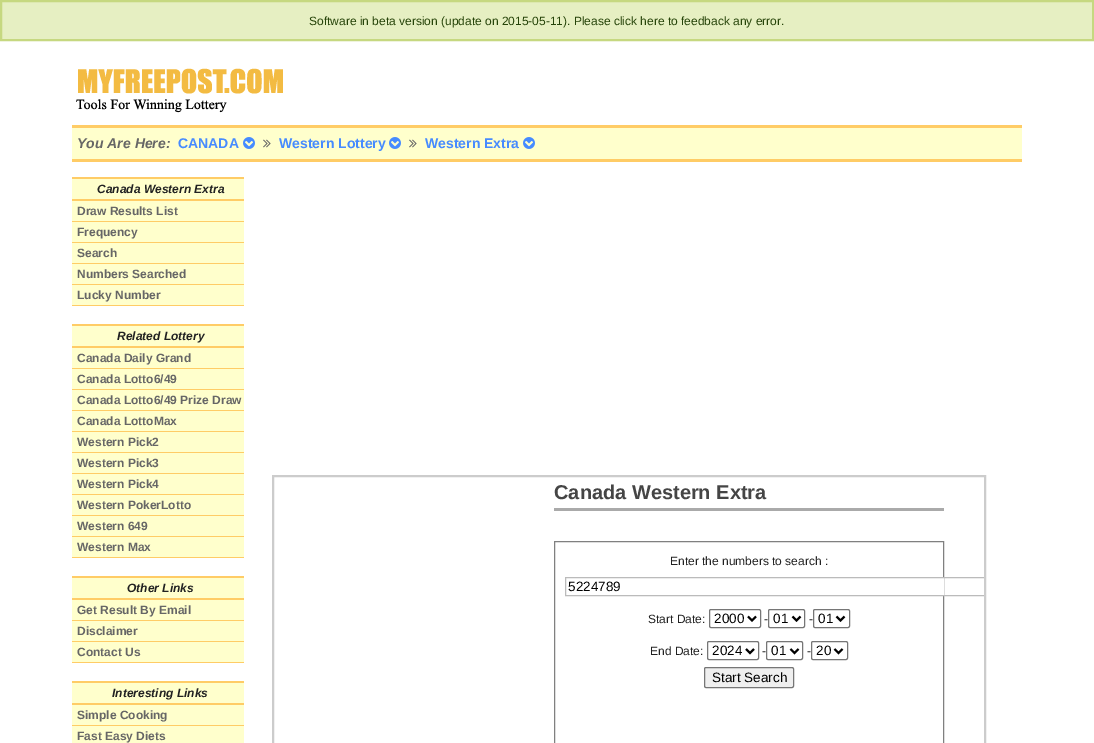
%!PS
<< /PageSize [1094 743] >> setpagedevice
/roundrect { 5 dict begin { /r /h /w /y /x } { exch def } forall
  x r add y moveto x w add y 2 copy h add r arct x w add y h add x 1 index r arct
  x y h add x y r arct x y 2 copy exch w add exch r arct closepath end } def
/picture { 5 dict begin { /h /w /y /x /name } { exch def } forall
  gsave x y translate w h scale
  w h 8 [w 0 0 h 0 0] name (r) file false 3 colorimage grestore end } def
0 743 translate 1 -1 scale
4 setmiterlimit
1 setgray
0 0 1094 743 rectfill
0.902 0.937 0.761 setrgbcolor
newpath 1 1 moveto 1093 1 lineto 1093 40 lineto 1 40 lineto closepath gsave fill grestore
0.776 0.847 0.502 setrgbcolor
2 setlinewidth
stroke
/LiberationSans-Regular [12 0 0 -12 0 0] selectfont
0.149 0.267 0.035 setrgbcolor
309 25 moveto (Software in beta version \(update on 2015-05-11\). Please click here to feedback any error.) show
(img1.rgb) 76 68 207 45 picture
1 1 0.8 setrgbcolor
72 128 950 31 rectfill
1 0.8 0.4 setrgbcolor
72 125 950 3 rectfill
72 159 950 3 rectfill
/LiberationSans-BoldItalic [14 0 0 -14 0 0] selectfont
0.4 setgray
77 148 moveto (You Are Here:) show
/LiberationSans-Bold [14 0 0 -14 0 0] selectfont
0.275 0.545 1 setrgbcolor
178 148 moveto (CANADA) show
(img2.rgb) 243 137 12 12 picture
(img3.rgb) 263 139 8 9 picture
279 148 moveto (Western Lottery) show
(img2.rgb) 389 137 12 12 picture
(img3.rgb) 409 139 8 9 picture
425 148 moveto (Western Extra) show
(img2.rgb) 523 137 12 12 picture
1 1 0.8 setrgbcolor
72 179 172 20 rectfill
1 0.8 0.4 setrgbcolor
72 177 172 2 rectfill
72 199 172 2 rectfill
/LiberationSans-BoldItalic [12 0 0 -12 0 0] selectfont
0.133 setgray
97 193 moveto (Canada Western Extra) show
1 1 0.8 setrgbcolor
72 201 172 20 rectfill
1 0.8 0.4 setrgbcolor
72 221 172 1 rectfill
/LiberationSans-Bold [12 0 0 -12 0 0] selectfont
0.4 setgray
77 215 moveto (Draw Results List) show
1 1 0.8 setrgbcolor
72 222 172 20 rectfill
1 0.8 0.4 setrgbcolor
72 242 172 1 rectfill
0.4 setgray
77 236 moveto (Frequency) show
1 1 0.8 setrgbcolor
72 243 172 20 rectfill
1 0.8 0.4 setrgbcolor
72 263 172 1 rectfill
0.4 setgray
77 257 moveto (Search) show
1 1 0.8 setrgbcolor
72 264 172 20 rectfill
1 0.8 0.4 setrgbcolor
72 284 172 1 rectfill
0.4 setgray
77 278 moveto (Numbers Searched) show
1 1 0.8 setrgbcolor
72 285 172 20 rectfill
1 0.8 0.4 setrgbcolor
72 305 172 1 rectfill
0.4 setgray
77 299 moveto (Lucky Number) show
1 1 0.8 setrgbcolor
72 326 172 20 rectfill
1 0.8 0.4 setrgbcolor
72 324 172 2 rectfill
72 346 172 2 rectfill
/LiberationSans-BoldItalic [12 0 0 -12 0 0] selectfont
0.133 setgray
117 340 moveto (Related Lottery) show
1 1 0.8 setrgbcolor
72 348 172 20 rectfill
1 0.8 0.4 setrgbcolor
72 368 172 1 rectfill
/LiberationSans-Bold [12 0 0 -12 0 0] selectfont
0.4 setgray
77 362 moveto (Canada Daily Grand) show
1 1 0.8 setrgbcolor
72 369 172 20 rectfill
1 0.8 0.4 setrgbcolor
72 389 172 1 rectfill
0.4 setgray
77 383 moveto (Canada Lotto6/49) show
1 1 0.8 setrgbcolor
72 390 172 20 rectfill
1 0.8 0.4 setrgbcolor
72 410 172 1 rectfill
0.4 setgray
77 404 moveto (Canada Lotto6/49 Prize Draw) show
1 1 0.8 setrgbcolor
72 411 172 20 rectfill
1 0.8 0.4 setrgbcolor
72 431 172 1 rectfill
0.4 setgray
77 425 moveto (Canada LottoMax) show
1 1 0.8 setrgbcolor
72 432 172 20 rectfill
1 0.8 0.4 setrgbcolor
72 452 172 1 rectfill
0.4 setgray
77 446 moveto (Western Pick2) show
1 1 0.8 setrgbcolor
72 453 172 20 rectfill
1 0.8 0.4 setrgbcolor
72 473 172 1 rectfill
0.4 setgray
77 467 moveto (Western Pick3) show
1 1 0.8 setrgbcolor
72 474 172 20 rectfill
1 0.8 0.4 setrgbcolor
72 494 172 1 rectfill
0.4 setgray
77 488 moveto (Western Pick4) show
1 1 0.8 setrgbcolor
72 495 172 20 rectfill
1 0.8 0.4 setrgbcolor
72 515 172 1 rectfill
0.4 setgray
77 509 moveto (Western PokerLotto) show
1 1 0.8 setrgbcolor
72 516 172 20 rectfill
1 0.8 0.4 setrgbcolor
72 536 172 1 rectfill
0.4 setgray
77 530 moveto (Western 649) show
1 1 0.8 setrgbcolor
72 537 172 20 rectfill
1 0.8 0.4 setrgbcolor
72 557 172 1 rectfill
0.4 setgray
77 551 moveto (Western Max) show
1 1 0.8 setrgbcolor
72 578 172 20 rectfill
1 0.8 0.4 setrgbcolor
72 576 172 2 rectfill
72 598 172 2 rectfill
/LiberationSans-BoldItalic [12 0 0 -12 0 0] selectfont
0.133 setgray
127 592 moveto (Other Links) show
1 1 0.8 setrgbcolor
72 600 172 20 rectfill
1 0.8 0.4 setrgbcolor
72 620 172 1 rectfill
/LiberationSans-Bold [12 0 0 -12 0 0] selectfont
0.4 setgray
77 614 moveto (Get Result By Email) show
1 1 0.8 setrgbcolor
72 621 172 20 rectfill
1 0.8 0.4 setrgbcolor
72 641 172 1 rectfill
0.4 setgray
77 635 moveto (Disclaimer) show
1 1 0.8 setrgbcolor
72 642 172 20 rectfill
1 0.8 0.4 setrgbcolor
72 662 172 1 rectfill
0.4 setgray
77 656 moveto (Contact Us) show
1 1 0.8 setrgbcolor
72 683 172 20 rectfill
1 0.8 0.4 setrgbcolor
72 681 172 2 rectfill
72 703 172 2 rectfill
/LiberationSans-BoldItalic [12 0 0 -12 0 0] selectfont
0.133 setgray
112 697 moveto (Interesting Links) show
1 1 0.8 setrgbcolor
72 705 172 20 rectfill
1 0.8 0.4 setrgbcolor
72 725 172 1 rectfill
/LiberationSans-Bold [12 0 0 -12 0 0] selectfont
0.4 setgray
77 719 moveto (Simple Cooking) show
1 1 0.8 setrgbcolor
72 726 172 17 rectfill
0.4 setgray
77 740 moveto (Fast Easy Diets) show
0.8 setgray
273 476 712 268 rectstroke
0.667 setgray
554 508 390 3 rectfill
/LiberationSans-Bold [20 0 0 -20 0 0] selectfont
0.271 setgray
554 499 moveto (Canada Western Extra) show
0.502 setgray
1 setlinewidth
554.5 541.5 389 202 rectstroke
/LiberationSans-Regular [12 0 0 -12 0 0] selectfont
0.133 setgray
670 565 moveto (Enter the numbers to search :) show
1 setgray
943 578 1 17 rectfill
gsave
274 477 710 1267 rectclip
0.733 setgray
565.5 577.5 422 18 rectstroke
grestore
/LiberationSans-Regular [13.5 0 0 -13.5 0 0] selectfont
0 setgray
568 591 moveto (5224789) show
/LiberationSans-Regular [12 0 0 -12 0 0] selectfont
0.133 setgray
648 623 moveto (Start Date:) show
0.463 setgray
709.5 609.5 51 18 1.5 roundrect stroke
0 setgray
2 setlinewidth
newpath 748 616.5 moveto 752 620.5 lineto 756 616.5 lineto stroke
/LiberationSans-Regular [13.5 0 0 -13.5 0 0] selectfont
714 623 moveto (2000) show
/LiberationSans-Regular [12 0 0 -12 0 0] selectfont
0.133 setgray
764 623 moveto (-) show
0.463 setgray
1 setlinewidth
768.5 609.5 36 18 1.5 roundrect stroke
0 setgray
2 setlinewidth
newpath 792.5 616.5 moveto 796.5 620.5 lineto 800.5 616.5 lineto stroke
/LiberationSans-Regular [13.5 0 0 -13.5 0 0] selectfont
773 623 moveto (01) show
/LiberationSans-Regular [12 0 0 -12 0 0] selectfont
0.133 setgray
809 623 moveto (-) show
0.463 setgray
1 setlinewidth
813.5 609.5 36 18 1.5 roundrect stroke
0 setgray
2 setlinewidth
newpath 836.5 616.5 moveto 840.5 620.5 lineto 844.5 616.5 lineto stroke
/LiberationSans-Regular [13.5 0 0 -13.5 0 0] selectfont
818 623 moveto (01) show
/LiberationSans-Regular [12 0 0 -12 0 0] selectfont
0.133 setgray
650 655 moveto (End Date:) show
0.463 setgray
1 setlinewidth
707.5 641.5 51 18 1.5 roundrect stroke
0 setgray
2 setlinewidth
newpath 746 649 moveto 750 653 lineto 754 649 lineto stroke
/LiberationSans-Regular [13.5 0 0 -13.5 0 0] selectfont
712 655 moveto (2024) show
/LiberationSans-Regular [12 0 0 -12 0 0] selectfont
0.133 setgray
762 655 moveto (-) show
0.463 setgray
1 setlinewidth
766.5 641.5 36 18 1.5 roundrect stroke
0 setgray
2 setlinewidth
newpath 790.5 649 moveto 794.5 653 lineto 798.5 649 lineto stroke
/LiberationSans-Regular [13.5 0 0 -13.5 0 0] selectfont
771 655 moveto (01) show
/LiberationSans-Regular [12 0 0 -12 0 0] selectfont
0.133 setgray
807 655 moveto (-) show
0.463 setgray
1 setlinewidth
811.5 641.5 36 18 1.5 roundrect stroke
0 setgray
2 setlinewidth
newpath 834.5 649 moveto 838.5 653 lineto 842.5 649 lineto stroke
/LiberationSans-Regular [13.5 0 0 -13.5 0 0] selectfont
816 655 moveto (20) show
0.937 setgray
704.5 667.5 89 20 1.5 roundrect gsave fill grestore
0.463 setgray
1 setlinewidth
stroke
0 setgray
712 682 moveto (Start Search) show
showpage
